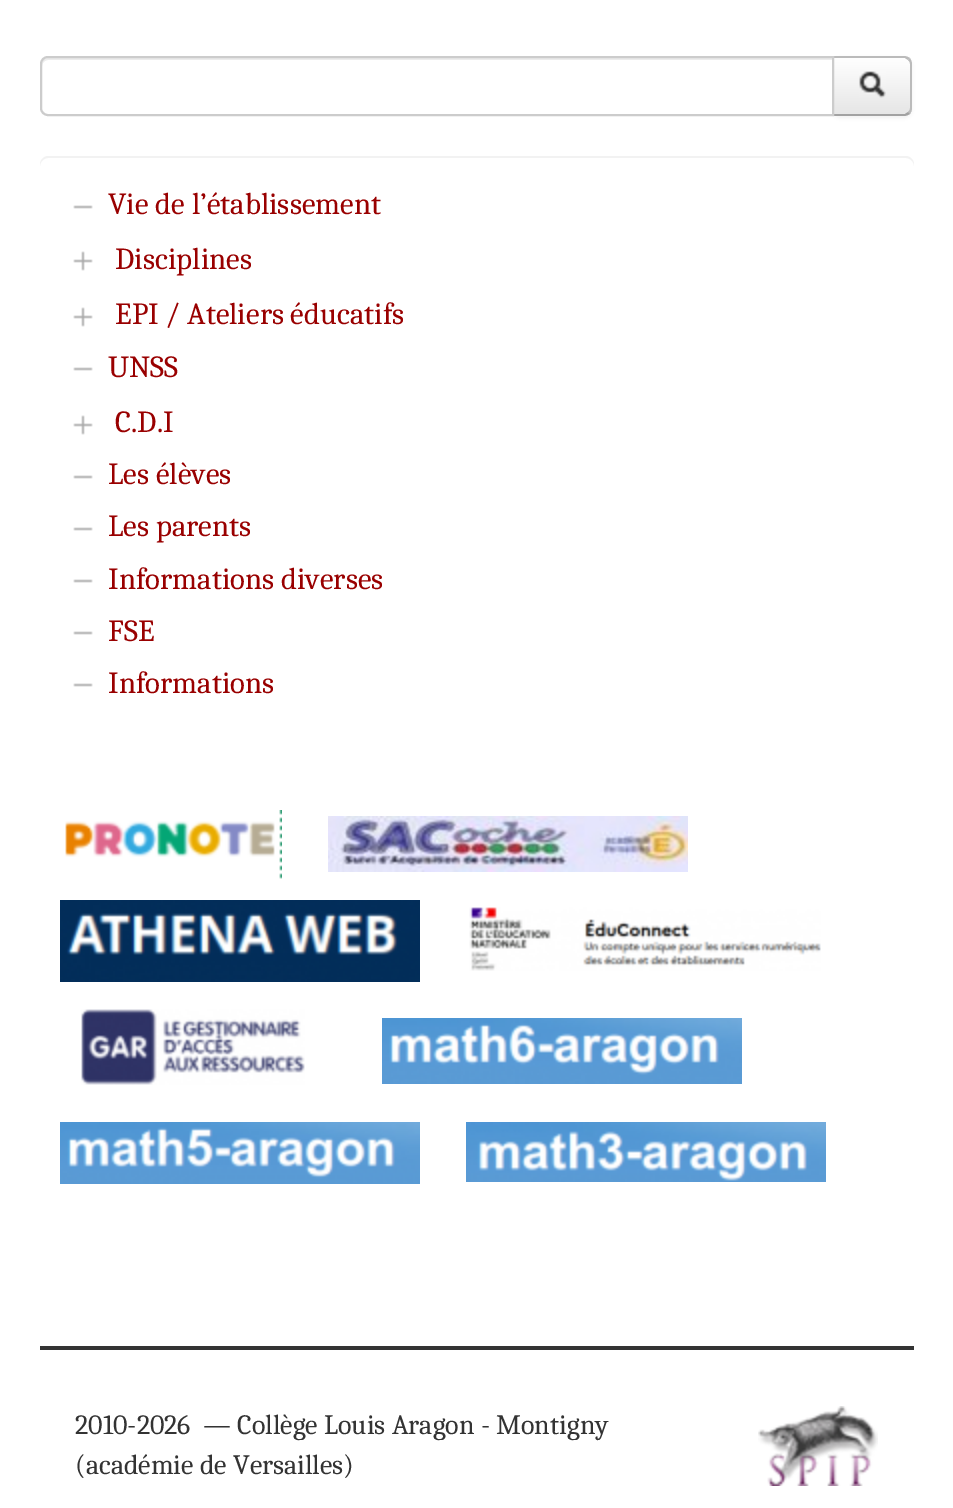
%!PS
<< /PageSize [953 1508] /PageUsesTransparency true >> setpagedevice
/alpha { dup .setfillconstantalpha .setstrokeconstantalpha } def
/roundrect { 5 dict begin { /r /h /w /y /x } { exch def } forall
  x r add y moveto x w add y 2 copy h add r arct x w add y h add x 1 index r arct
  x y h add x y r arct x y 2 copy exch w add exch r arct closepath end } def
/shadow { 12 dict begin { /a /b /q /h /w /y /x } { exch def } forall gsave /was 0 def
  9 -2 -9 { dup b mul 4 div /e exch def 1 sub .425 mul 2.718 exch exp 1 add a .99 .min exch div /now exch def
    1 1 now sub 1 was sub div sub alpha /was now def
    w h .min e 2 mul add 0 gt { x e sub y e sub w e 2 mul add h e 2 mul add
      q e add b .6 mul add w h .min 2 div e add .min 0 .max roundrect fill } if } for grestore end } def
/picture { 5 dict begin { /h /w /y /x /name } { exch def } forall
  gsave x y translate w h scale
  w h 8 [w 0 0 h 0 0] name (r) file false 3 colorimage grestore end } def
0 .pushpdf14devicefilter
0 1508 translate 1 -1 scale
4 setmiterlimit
1 setgray
0 0 953 1508 rectfill
0 setgray
832 58 80 60 8 2 0.05 shadow
gsave
newpath 832 56 moveto 904 56 lineto 908.5 56 912 59.5 912 64 curveto 912 108 lineto 912 112.5 908.5 116 904 116 curveto 832 116 lineto closepath clip newpath
gsave newpath 834 58 moveto 912 58 lineto 912 114 lineto 834 114 lineto closepath clip newpath
<< /ShadingType 2 /ColorSpace /DeviceRGB /Coords [872 58 872 114] /Extend [true true] /Function << /FunctionType 2 /Domain [0 1] /C0 [1 1 1] /C1 [0.902 0.902 0.902] /N 1 >> >> shfill grestore
grestore
0.733 setgray
newpath 832 56 moveto 834 58 lineto 905 58 lineto 908 60 lineto 910 58 lineto 908 57 906 56 904 56 curveto closepath fill
newpath 912 108 moveto 912 64 lineto 912 62 911 60 910 58 curveto 908 60 lineto 909 61 910 62 910 64 curveto 910 108 lineto 910 110 909 111 908 112 curveto 910 114 lineto 911 112 912 110 912 108 curveto closepath fill
0.635 setgray
newpath 904 116 moveto 906 116 908 115 910 114 curveto 908 112 lineto 905 114 lineto 834 114 lineto 832 116 lineto closepath fill
1 setgray
newpath 48 56 moveto 834 56 lineto 834 116 lineto 48 116 lineto 43.5 116 40 112.5 40 108 curveto 40 64 lineto 40 59.5 43.5 56 48 56 curveto closepath fill
0.925 setgray
newpath 48 60 moveto 832 60 lineto 832 58 lineto 48 58 lineto 45 58 42 61 42 64 curveto 42 66 lineto 42 63 45 60 48 60 curveto closepath fill
0.8 setgray
2 setlinewidth
newpath 48 57 moveto 833 57 lineto 833 115 lineto 48 115 lineto 44 115 41 112 41 108 curveto 41 64 lineto 41 60 44 57 48 57 curveto closepath stroke
(img1.rgb) 859 71 27 27 picture
0.949 setgray
newpath 48 158 moveto 906 158 lineto 910 158 914 162 914 166 curveto 914 164 lineto 914 160 910 156 906 156 curveto 48 156 lineto 44 156 40 160 40 164 curveto 40 166 lineto 40 162 44 158 48 158 curveto closepath fill
(img2.rgb) 73 205 20 4 picture
/Caladea-Regular [30.75 0 0 -30.75 0 0] selectfont
0.6 0 0 setrgbcolor
108 214 moveto (Vie de l’établissement) show
(img3.rgb) 73 251 20 20 picture
115 269 moveto (Disciplines) show
(img3.rgb) 73 307 20 20 picture
115 324 moveto (EPI / Ateliers éducatifs) show
(img2.rgb) 73 367 20 4 picture
108 377 moveto (UNSS) show
(img3.rgb) 73 415 20 20 picture
115 432 moveto (C.D.I) show
(img2.rgb) 73 475 20 4 picture
108 484 moveto (Les élèves) show
(img2.rgb) 73 527 20 4 picture
108 536 moveto (Les parents) show
(img2.rgb) 73 579 20 4 picture
108 589 moveto (Informations diverses) show
(img2.rgb) 73 631 20 4 picture
108 641 moveto (FSE) show
(img2.rgb) 73 683 20 4 picture
108 693 moveto (Informations) show
(img4.rgb) 65 810 217 69 picture
(img5.rgb) 328 816 360 56 picture
(img6.rgb) 60 900 360 82 picture
(img7.rgb) 469 907 352 64 picture
(img8.rgb) 81 1009 224 76 picture
(img9.rgb) 382 1018 360 66 picture
(img10.rgb) 60 1122 360 62 picture
(img11.rgb) 466 1122 360 60 picture
0.2 setgray
40 1346 874 4 rectfill
/Caladea-Regular [28 0 0 -28 0 0] selectfont
75 1434 moveto (2010-2026  — Collège Louis Aragon - Montigny) show
75 1474 moveto (\(académie de Versailles\)) show
(img12.rgb) 758 1406 120 80 picture
.poppdf14devicefilter showpage
